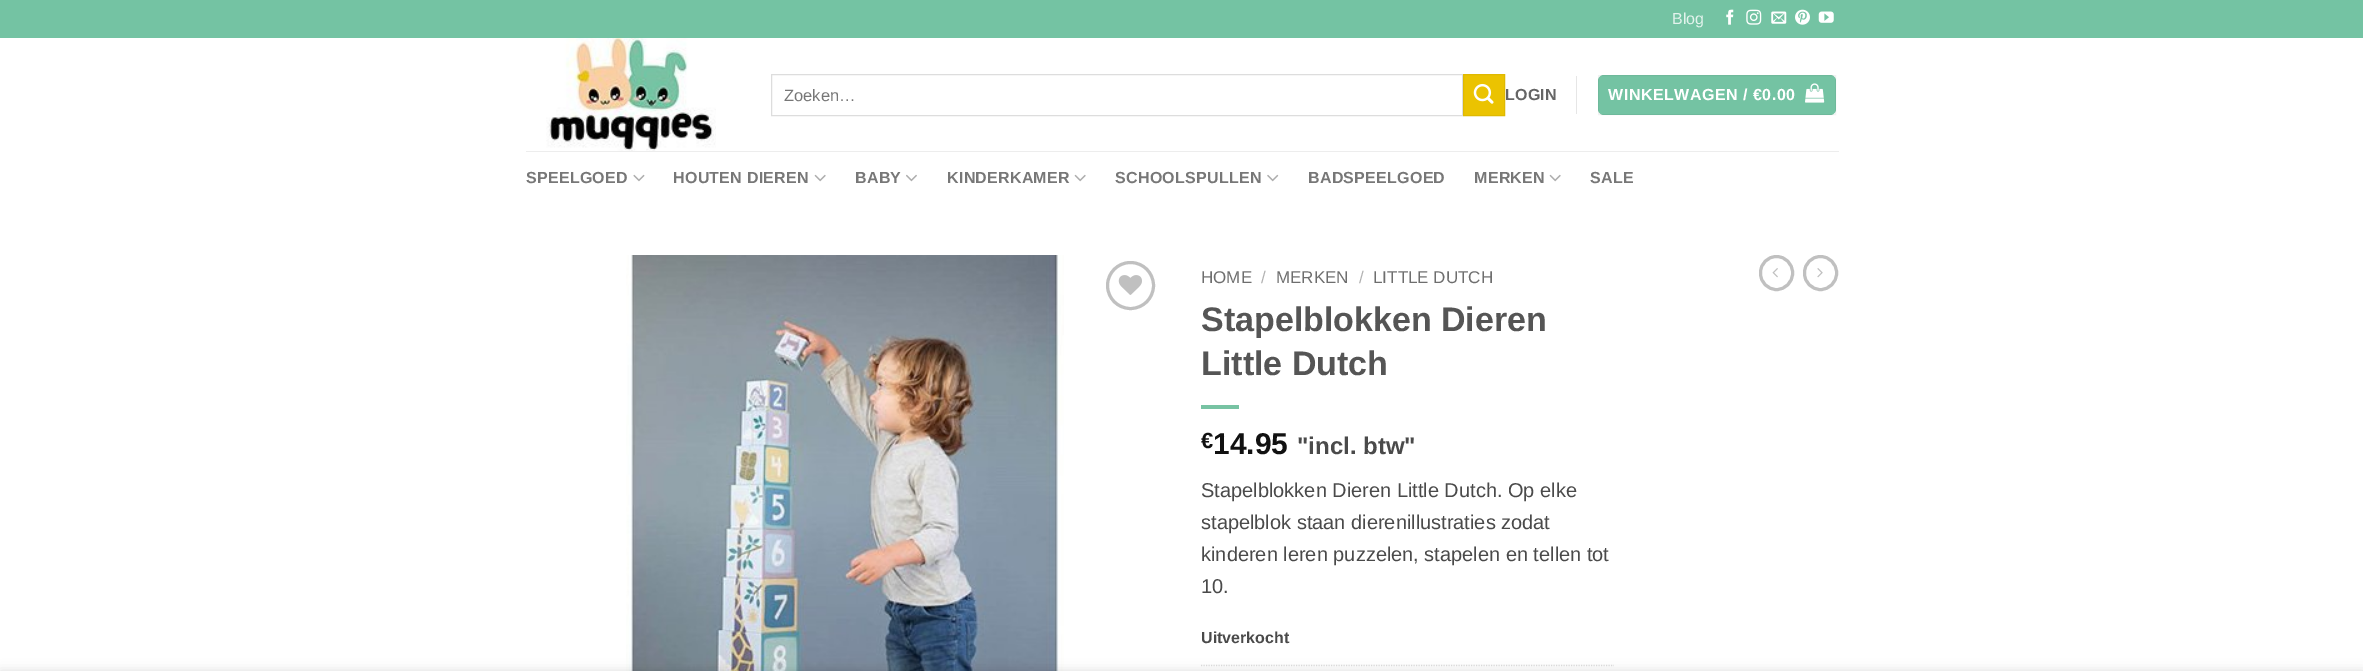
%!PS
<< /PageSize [2363 671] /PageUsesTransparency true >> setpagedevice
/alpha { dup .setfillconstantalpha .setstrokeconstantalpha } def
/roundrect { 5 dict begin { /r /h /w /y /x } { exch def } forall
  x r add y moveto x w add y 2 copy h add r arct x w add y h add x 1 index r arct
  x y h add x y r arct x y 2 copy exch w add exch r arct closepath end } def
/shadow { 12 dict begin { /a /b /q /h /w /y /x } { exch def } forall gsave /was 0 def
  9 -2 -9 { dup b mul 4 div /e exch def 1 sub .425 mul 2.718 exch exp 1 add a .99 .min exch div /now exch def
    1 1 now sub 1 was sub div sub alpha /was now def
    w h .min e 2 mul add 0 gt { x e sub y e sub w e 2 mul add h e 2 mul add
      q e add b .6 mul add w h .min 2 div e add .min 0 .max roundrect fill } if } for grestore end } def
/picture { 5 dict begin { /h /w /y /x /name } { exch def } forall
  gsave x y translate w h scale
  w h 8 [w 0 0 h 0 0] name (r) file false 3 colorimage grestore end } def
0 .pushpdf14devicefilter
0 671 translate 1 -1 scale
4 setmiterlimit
1 setgray
0 0 2363 671 rectfill
0.455 0.765 0.639 setrgbcolor
0 0 2363 38 rectfill
/LiberationSans-Regular [16 0 0 -16 0 0] selectfont
0.89 0.953 0.929 setrgbcolor
1672 24 moveto (Blog) show
(img1.rgb) 1726 9 8 16 picture
(img2.rgb) 1746 9 16 16 picture
(img3.rgb) 1771 11 16 13 picture
(img4.rgb) 1795 9 15 16 picture
(img5.rgb) 1818 11 16 12 picture
(img6.rgb) 546 38 170 113 picture
0.867 setgray
771.5 74.5 691 41 rectstroke
/LiberationSans-Regular [16.5 0 0 -16.5 0 0] selectfont
0.467 setgray
784 101 moveto (Zoeken…) show
0.922 0.765 0.004 setrgbcolor
newpath 1463.5 74.5 moveto 1504.5 74.5 lineto 1504.5 115.5 lineto 1463.5 115.5 lineto closepath gsave fill grestore
0.875 0.725 0.004 setrgbcolor
stroke
(img7.rgb) 1473 83 21 21 picture
/LiberationSans-Bold [16 0 0 -16 0 0] selectfont
0.396 setgray
1505 100 moveto 0.25 0 (LOGIN) ashow
0.902 setgray
1576 76 1 38 rectfill
0.455 0.765 0.639 setrgbcolor
1598 75 238 40 6 roundrect fill
0.05 alpha
0 setgray
1598.5 75.5 237 39 rectstroke
1 alpha
1 setgray
1608 100 moveto 0.5 0 (WINKELWAGEN / €0.00) ashow
(img8.rgb) 1805 83 20 20 picture
0.929 setgray
526 151 1313 1 rectfill
0.467 setgray
526 183 moveto 0.25 0 (SPEELGOED) ashow
(img9.rgb) 633 174 12 8 picture
673 183 moveto 0.25 0 (HOUTEN DIEREN) ashow
(img10.rgb) 814 174 12 8 picture
855 183 moveto 0.25 0 (BABY) ashow
(img11.rgb) 906 174 11 8 picture
947 183 moveto 0.25 0 (KINDERKAMER) ashow
(img10.rgb) 1074 174 12 8 picture
1115 183 moveto 0.25 0 (SCHOOLSPULLEN) ashow
(img12.rgb) 1267 174 12 8 picture
1308 183 moveto 0.25 0 (BADSPEELGOED) ashow
1474 183 moveto 0.25 0 (MERKEN) ashow
(img10.rgb) 1549 174 12 8 picture
1590 183 moveto 0.25 0 (SALE) ashow
(img13.rgb) 626 255 438 416 picture
0.753 setgray
3 setlinewidth
newpath 1130.5 285.5 23 0 360 arc closepath stroke
(img14.rgb) 1118 275 24 20 picture
/LiberationSans-Regular [17 0 0 -17 0 0] selectfont
0.431 setgray
1201 283 moveto (HOME) show
0.698 setgray
1261 283 moveto (/) show
0.431 setgray
1276 283 moveto (MERKEN) show
0.698 setgray
1359 283 moveto (/) show
0.431 setgray
1373 283 moveto (LITTLE DUTCH) show
/LiberationSans-Bold [34 0 0 -34 0 0] selectfont
0.333 setgray
1201 331 moveto (Stapelblokken Dieren) show
1201 375 moveto (Little Dutch) show
0.467 0.765 0.639 setrgbcolor
1201 405 38 4 rectfill
/LiberationSans-Bold [22 0 0 -22 0 0] selectfont
0.067 setgray
1201 448 moveto (€) show
/LiberationSans-Bold [30 0 0 -30 0 0] selectfont
1213 454 moveto (14.95) show
/LiberationSans-Bold [24 0 0 -24 0 0] selectfont
0.29 setgray
1297 454 moveto ("incl. btw") show
/LiberationSans-Regular [20 0 0 -20 0 0] selectfont
1201 497 moveto (Stapelblokken Dieren Little Dutch. Op elke) show
1201 529 moveto (stapelblok staan dierenillustraties zodat) show
1201 561 moveto (kinderen leren puzzelen, stapelen en tellen tot) show
1201 593 moveto (10.) show
/LiberationSans-Bold [16 0 0 -16 0 0] selectfont
1201 643 moveto (Uitverkocht) show
0.867 setgray
1.2 setlinewidth
[1.25 1.25] 0 setdash
newpath 1201 665.5 moveto 1614 665.5 lineto stroke
0.753 setgray
3 setlinewidth
[] 0 setdash
1760.5 256.5 32 33 16 roundrect stroke
(img15.rgb) 1772 268 6 10 picture
1804.5 256.5 32 33 16 roundrect stroke
(img16.rgb) 1817 268 6 10 picture
0 setgray
0 671 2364 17 0 5.5 0.14 shadow
.poppdf14devicefilter showpage
